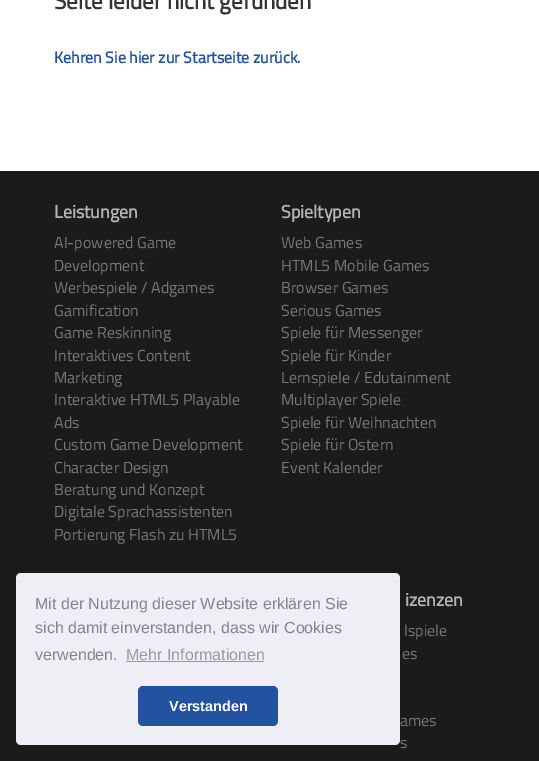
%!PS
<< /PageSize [539 761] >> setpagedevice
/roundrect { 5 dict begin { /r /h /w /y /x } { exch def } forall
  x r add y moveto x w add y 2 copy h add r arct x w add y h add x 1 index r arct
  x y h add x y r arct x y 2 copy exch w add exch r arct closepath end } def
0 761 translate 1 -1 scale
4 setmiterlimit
1 setgray
0 0 539 761 rectfill
/TitilliumWeb-Bold [23 0 0 -23 0 0] selectfont
0.2 setgray
54 9 moveto (Seite leider nicht gefunden) show
/TitilliumWeb-Bold [16 0 0 -16 0 0] selectfont
0.137 0.322 0.631 setrgbcolor
54 63 moveto (Kehren Sie hier zur Startseite zurück.) show
0.106 setgray
0 171 539 590 rectfill
/TitilliumWeb-Bold [18 0 0 -18 0 0] selectfont
0.71 setgray
54 218 moveto (Leistungen) show
/TitilliumWeb-Regular [16 0 0 -16 0 0] selectfont
0.467 setgray
54 248 moveto (AI-powered Game) show
54 271 moveto (Development) show
54 293 moveto (Werbespiele / Adgames) show
54 316 moveto (Gamification) show
54 338 moveto (Game Reskinning) show
54 361 moveto (Interaktives Content) show
54 383 moveto (Marketing) show
54 405 moveto (Interaktive HTML5 Playable) show
54 428 moveto (Ads) show
54 450 moveto (Custom Game Development) show
54 473 moveto (Character Design) show
54 495 moveto (Beratung und Konzept) show
54 517 moveto (Digitale Sprachassistenten) show
54 540 moveto (Portierung Flash zu HTML5) show
/TitilliumWeb-Bold [18 0 0 -18 0 0] selectfont
0.71 setgray
281 218 moveto (Spieltypen) show
/TitilliumWeb-Regular [16 0 0 -16 0 0] selectfont
0.467 setgray
281 248 moveto (Web Games) show
281 271 moveto (HTML5 Mobile Games) show
281 293 moveto (Browser Games) show
281 316 moveto (Serious Games) show
281 338 moveto (Spiele für Messenger) show
281 361 moveto (Spiele für Kinder) show
281 383 moveto (Lernspiele / Edutainment) show
281 405 moveto (Multiplayer Spiele) show
281 428 moveto (Spiele für Weihnachten) show
281 450 moveto (Spiele für Ostern) show
281 473 moveto (Event Kalender) show
/TitilliumWeb-Bold [18 0 0 -18 0 0] selectfont
0.71 setgray
405 606 moveto (izenzen) show
/TitilliumWeb-Regular [16 0 0 -16 0 0] selectfont
0.467 setgray
404 636 moveto (lspiele) show
402 659 moveto (es) show
400 726 moveto (ames) show
400 748 moveto (s) show
0.929 0.937 0.961 setrgbcolor
16 573 384 172 5 roundrect fill
/LiberationSans-Regular [16 0 0 -16 0 0] selectfont
0.514 0.514 0.569 setrgbcolor
35 609 moveto (Mit der Nutzung dieser Website erklären Sie) show
35 633 moveto (sich damit einverstanden, dass wir Cookies) show
35 660 moveto (verwenden.) show
0.596 0.6 0.647 setrgbcolor
126 660 moveto (Mehr Informationen) show
126 661 138 1 rectfill
0.137 0.322 0.631 setrgbcolor
138 686 140 40 5 roundrect fill
/LiberationSans-Bold [14.5 0 0 -14.5 0 0] selectfont
1 setgray
169 711 moveto (Verstanden) show
showpage
